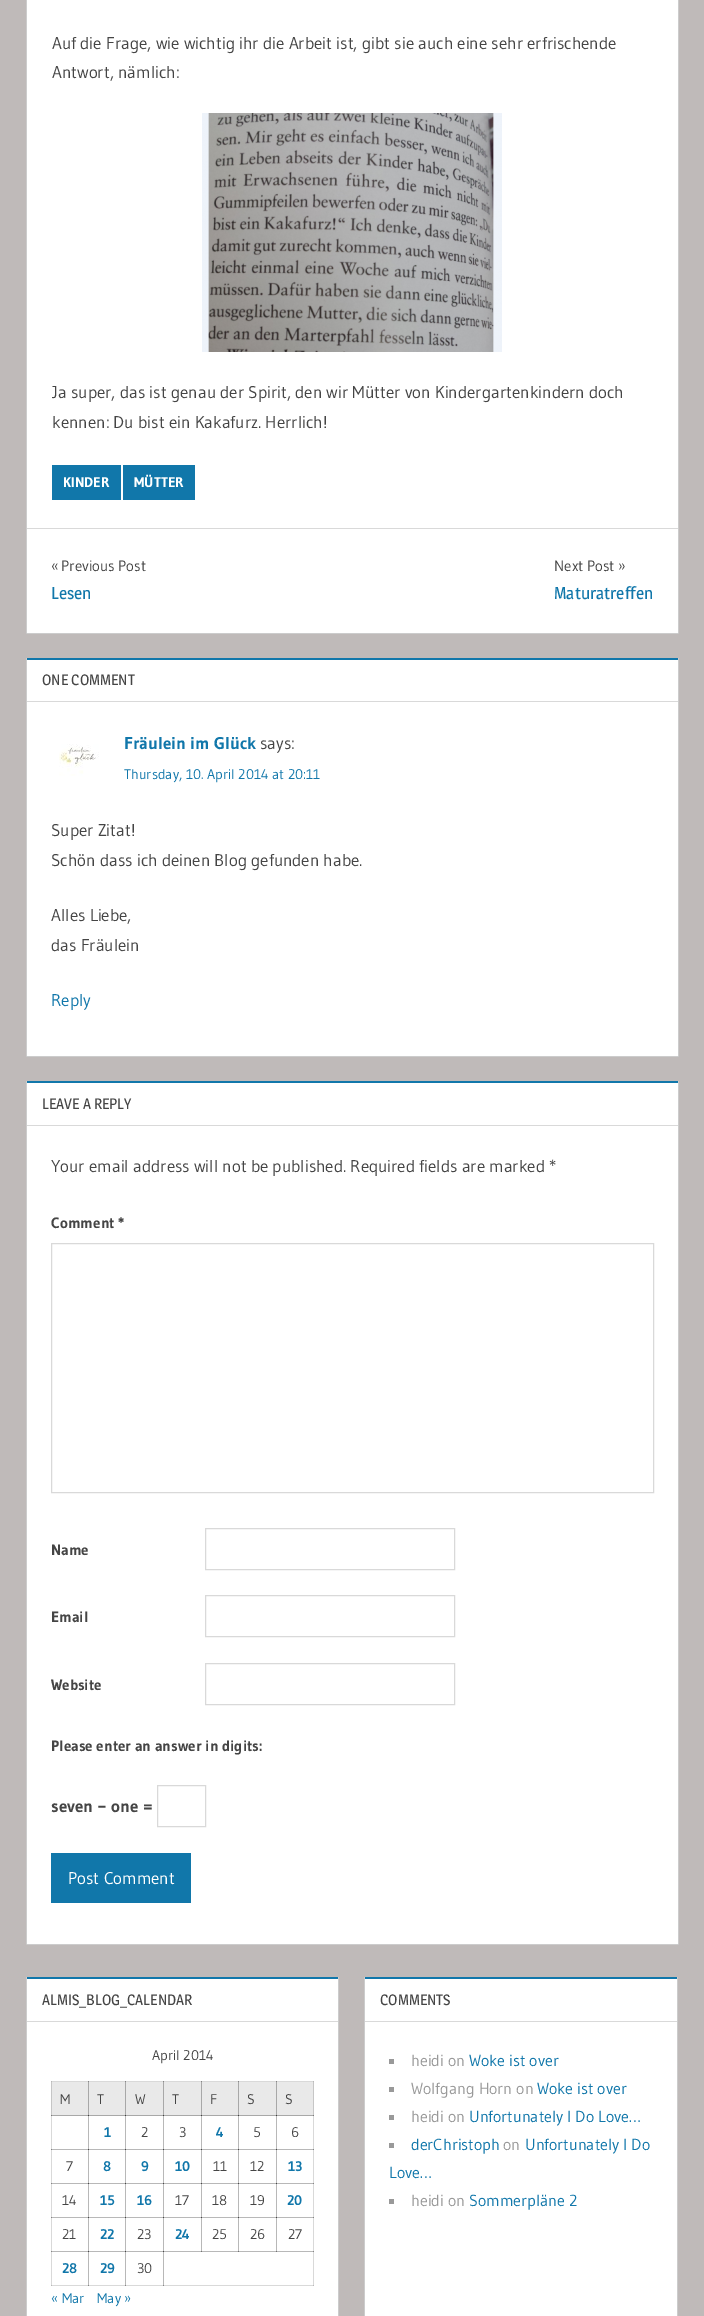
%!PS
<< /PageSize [704 2316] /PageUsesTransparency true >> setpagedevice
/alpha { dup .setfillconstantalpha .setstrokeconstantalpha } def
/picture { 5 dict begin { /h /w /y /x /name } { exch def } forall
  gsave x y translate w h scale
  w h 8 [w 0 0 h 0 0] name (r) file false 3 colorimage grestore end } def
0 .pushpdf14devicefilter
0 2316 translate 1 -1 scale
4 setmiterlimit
0.749 0.729 0.725 setrgbcolor
0 0 704 2316 rectfill
1 setgray
26 0 653 634 rectfill
0.8 setgray
newpath 679 -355 moveto 679 634 lineto 678 633 lineto 678 -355 lineto closepath fill
0.2 alpha
0 setgray
newpath 679 634 moveto 26 634 lineto 27 633 lineto 678 633 lineto closepath fill
newpath 26 634 moveto 26 -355 lineto 27 -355 lineto 27 633 lineto closepath fill
/Gudea-Regular [17 0 0 -17 0 0] selectfont
1 alpha
0.271 setgray
52 49 moveto (Auf die Frage, wie wichtig ihr die Arbeit ist, gibt sie auch eine sehr erfrischende) show
52 78 moveto (Antwort, nämlich:) show
(img1.rgb) 202 113 300 239 picture
52 398 moveto (Ja super, das ist genau der Spirit, den wir Mütter von Kindergartenkindern doch) show
52 428 moveto (kennen: Du bist ein Kakafurz. Herrlich!) show
0.067 0.467 0.667 setrgbcolor
52 465 69 35 rectfill
/Gudea-Bold [14 0 0 -14 0 0] selectfont
1 setgray
63 487 moveto (KINDER) show
0.067 0.467 0.667 setrgbcolor
123 465 72 35 rectfill
1 setgray
134 487 moveto (MÜTTER) show
0.851 setgray
27 528 651 1 rectfill
/Gudea-Regular [15 0 0 -15 0 0] selectfont
0.271 setgray
51 571 moveto («) show
61 571 moveto (Previous Post) show
/Magra-Regular [17 0 0 -17 0 0] selectfont
0.067 0.467 0.667 setrgbcolor
51 599 moveto (Lesen) show
/Gudea-Regular [15 0 0 -15 0 0] selectfont
0.271 setgray
554 571 moveto (Next Post ») show
/Magra-Regular [17 0 0 -17 0 0] selectfont
0.067 0.467 0.667 setrgbcolor
554 599 moveto (Maturatreffen) show
1 setgray
26 658 653 399 rectfill
0.067 0.467 0.667 setrgbcolor
27 658 651 2 rectfill
0.8 setgray
newpath 679 658 moveto 679 1057 lineto 678 1056 lineto 678 658 lineto closepath fill
0.2 alpha
0 setgray
newpath 679 1057 moveto 26 1057 lineto 27 1056 lineto 678 1056 lineto closepath fill
newpath 26 1057 moveto 26 658 lineto 27 658 lineto 27 1056 lineto closepath fill
1 alpha
0.851 setgray
27 701 651 1 rectfill
/Magra-Regular [15 0 0 -15 0 0] selectfont
0.271 setgray
42 685 moveto (ONE COMMENT) show
(img2.rgb) 59 744 40 32 picture
/Gudea-Bold [17 0 0 -17 0 0] selectfont
0.067 0.467 0.667 setrgbcolor
124 749 moveto (Fräulein im Glück) show
/Gudea-Regular [17 0 0 -17 0 0] selectfont
0.271 setgray
260 749 moveto (says:) show
/Gudea-Regular [14 0 0 -14 0 0] selectfont
0.067 0.467 0.667 setrgbcolor
124 779 moveto (Thursday, 10. April 2014 at 20:11) show
/Gudea-Regular [17 0 0 -17 0 0] selectfont
0.271 setgray
51 836 moveto (Super Zitat!) show
51 866 moveto (Schön dass ich deinen Blog gefunden habe.) show
51 921 moveto (Alles Liebe,) show
51 951 moveto (das Fräulein) show
0.067 0.467 0.667 setrgbcolor
51 1006 moveto (Reply) show
1 setgray
26 1081 653 864 rectfill
0.067 0.467 0.667 setrgbcolor
27 1081 651 2 rectfill
0.8 setgray
newpath 679 1081 moveto 679 1945 lineto 678 1944 lineto 678 1081 lineto closepath fill
0.2 alpha
0 setgray
newpath 679 1945 moveto 26 1945 lineto 27 1944 lineto 678 1944 lineto closepath fill
newpath 26 1945 moveto 26 1081 lineto 27 1081 lineto 27 1944 lineto closepath fill
1 alpha
0.851 setgray
27 1125 651 1 rectfill
/Magra-Regular [15 0 0 -15 0 0] selectfont
0.271 setgray
42 1109 moveto (LEAVE A REPLY) show
/Gudea-Regular [17 0 0 -17 0 0] selectfont
51 1172 moveto (Your email address will not be published. Required fields are marked *) show
/Gudea-Bold [15 0 0 -15 0 0] selectfont
51 1228 moveto (Comment *) show
0.851 setgray
51.5 1243.5 602 249 rectstroke
0.271 setgray
51 1555 moveto (Name) show
0.851 setgray
205.5 1528.5 249 41 rectstroke
0.271 setgray
51 1622 moveto (Email) show
0.851 setgray
205.5 1595.5 249 41 rectstroke
0.271 setgray
51 1690 moveto (Website) show
0.851 setgray
205.5 1663.5 249 41 rectstroke
0.271 setgray
51 1751 moveto (Please enter an answer in digits:) show
/Gudea-Bold [17 0 0 -17 0 0] selectfont
51 1812 moveto (seven − one =) show
0.851 setgray
157.5 1785.5 48 41 rectstroke
0.067 0.467 0.667 setrgbcolor
51 1853 140 50 rectfill
/Gudea-Regular [17 0 0 -17 0 0] selectfont
1 setgray
68 1884 moveto (Post Comment) show
27 1979 311 337 rectfill
0.851 setgray
51 2081 263 1 rectfill
0.722 setgray
51 2081 1 1 rectfill
0.522 setgray
88 2081 1 1 rectfill
125 2081 1 1 rectfill
163 2081 1 1 rectfill
201 2081 1 1 rectfill
238 2081 1 1 rectfill
0.851 setgray
51 2115 1 171 rectfill
0.722 setgray
88 2115 1 35 rectfill
125 2115 1 35 rectfill
163 2115 1 35 rectfill
201 2115 1 35 rectfill
238 2115 1 35 rectfill
276 2115 1 35 rectfill
0.851 setgray
313 2115 1 137 rectfill
0.722 setgray
51 2149 38 1 rectfill
0.522 setgray
51 2149 1 1 rectfill
0.722 setgray
88 2149 1 35 rectfill
88 2149 38 1 rectfill
0.275 setgray
88 2149 1 1 rectfill
0.722 setgray
125 2149 1 35 rectfill
125 2149 39 1 rectfill
0.275 setgray
125 2149 1 1 rectfill
0.722 setgray
163 2149 1 35 rectfill
163 2149 39 1 rectfill
0.275 setgray
163 2149 1 1 rectfill
0.722 setgray
201 2149 1 35 rectfill
201 2149 38 1 rectfill
0.275 setgray
201 2149 1 1 rectfill
0.722 setgray
238 2149 1 35 rectfill
238 2149 39 1 rectfill
0.275 setgray
238 2149 1 1 rectfill
0.722 setgray
276 2149 1 35 rectfill
51 2183 38 1 rectfill
0.522 setgray
51 2183 1 1 rectfill
0.722 setgray
88 2183 1 35 rectfill
88 2183 38 1 rectfill
0.275 setgray
88 2183 1 1 rectfill
0.722 setgray
125 2183 1 35 rectfill
125 2183 39 1 rectfill
0.275 setgray
125 2183 1 1 rectfill
0.722 setgray
163 2183 1 35 rectfill
163 2183 39 1 rectfill
0.275 setgray
163 2183 1 1 rectfill
0.722 setgray
201 2183 1 35 rectfill
201 2183 38 1 rectfill
0.275 setgray
201 2183 1 1 rectfill
0.722 setgray
238 2183 1 35 rectfill
238 2183 39 1 rectfill
0.275 setgray
238 2183 1 1 rectfill
0.722 setgray
276 2183 1 35 rectfill
51 2217 38 1 rectfill
0.522 setgray
51 2217 1 1 rectfill
0.722 setgray
88 2217 1 35 rectfill
88 2217 38 1 rectfill
0.275 setgray
88 2217 1 1 rectfill
0.722 setgray
125 2217 1 35 rectfill
125 2217 39 1 rectfill
0.275 setgray
125 2217 1 1 rectfill
0.722 setgray
163 2217 1 35 rectfill
163 2217 39 1 rectfill
0.275 setgray
163 2217 1 1 rectfill
0.722 setgray
201 2217 1 35 rectfill
201 2217 38 1 rectfill
0.275 setgray
201 2217 1 1 rectfill
0.722 setgray
238 2217 1 35 rectfill
238 2217 39 1 rectfill
0.275 setgray
238 2217 1 1 rectfill
0.722 setgray
276 2217 1 35 rectfill
0.851 setgray
51 2285 38 1 rectfill
0.722 setgray
51 2285 1 1 rectfill
51 2251 38 1 rectfill
0.522 setgray
51 2251 1 1 rectfill
0.722 setgray
88 2251 1 35 rectfill
0.851 setgray
88 2285 38 1 rectfill
0.522 setgray
88 2285 1 1 rectfill
0.722 setgray
88 2251 38 1 rectfill
0.275 setgray
88 2251 1 1 rectfill
0.722 setgray
125 2251 1 35 rectfill
0.851 setgray
125 2285 39 1 rectfill
0.522 setgray
125 2285 1 1 rectfill
0.722 setgray
125 2251 39 1 rectfill
0.275 setgray
125 2251 1 1 rectfill
0.722 setgray
163 2251 1 35 rectfill
0.851 setgray
163 2285 151 1 rectfill
0.522 setgray
163 2285 1 1 rectfill
0.851 setgray
313 2251 1 35 rectfill
0.722 setgray
313 2285 1 1 rectfill
0.067 0.467 0.667 setrgbcolor
27 1977 311 2 rectfill
0.8 setgray
newpath 339 1977 moveto 339 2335 lineto 338 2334 lineto 338 1977 lineto closepath fill
newpath 26 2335 moveto 26 1977 lineto 27 1977 lineto 27 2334 lineto closepath fill
0.851 setgray
27 2021 311 1 rectfill
/Magra-Regular [15 0 0 -15 0 0] selectfont
0.271 setgray
42 2005 moveto (ALMIS_BLOG_CALENDAR) show
/Gudea-Regular [14 0 0 -14 0 0] selectfont
152 2060 moveto (April 2014) show
0.914 setgray
52 2082 36 33 rectfill
0.776 setgray
51 2082 1 34 rectfill
0.659 setgray
88 2082 1 34 rectfill
51 2115 38 1 rectfill
0.478 setgray
51 2115 1 1 rectfill
0.251 setgray
88 2115 1 1 rectfill
0.271 setgray
60 2104 moveto (M) show
0.914 setgray
89 2082 36 33 rectfill
0.659 setgray
125 2082 1 34 rectfill
89 2115 37 1 rectfill
0.251 setgray
125 2115 1 1 rectfill
0.271 setgray
97 2104 moveto (T) show
0.914 setgray
126 2082 37 33 rectfill
0.659 setgray
163 2082 1 34 rectfill
126 2115 75 1 rectfill
0.251 setgray
163 2115 1 1 rectfill
0.271 setgray
135 2104 moveto (W) show
0.914 setgray
164 2082 37 33 rectfill
0.271 setgray
172 2104 moveto (T) show
0.914 setgray
202 2082 36 33 rectfill
0.659 setgray
201 2082 1 34 rectfill
238 2082 1 34 rectfill
201 2115 75 1 rectfill
0.251 setgray
201 2115 1 1 rectfill
238 2115 1 1 rectfill
0.271 setgray
210 2104 moveto (F) show
0.914 setgray
239 2082 37 33 rectfill
0.271 setgray
247 2104 moveto (S) show
0.914 setgray
277 2082 36 33 rectfill
0.659 setgray
276 2082 1 34 rectfill
0.776 setgray
313 2082 1 34 rectfill
0.522 setgray
276 2081 1 1 rectfill
0.722 setgray
313 2081 1 1 rectfill
0.271 setgray
285 2104 moveto (S) show
/Gudea-Bold [14 0 0 -14 0 0] selectfont
0.067 0.467 0.667 setrgbcolor
104 2137 moveto (1) show
/Gudea-Regular [14 0 0 -14 0 0] selectfont
0.271 setgray
141 2137 moveto (2) show
179 2137 moveto (3) show
/Gudea-Bold [14 0 0 -14 0 0] selectfont
0.067 0.467 0.667 setrgbcolor
216 2137 moveto (4) show
/Gudea-Regular [14 0 0 -14 0 0] selectfont
0.271 setgray
253 2137 moveto (5) show
0.659 setgray
276 2115 38 1 rectfill
0.251 setgray
276 2115 1 1 rectfill
0.478 setgray
313 2115 1 1 rectfill
0.271 setgray
291 2137 moveto (6) show
66 2171 moveto (7) show
/Gudea-Bold [14 0 0 -14 0 0] selectfont
0.067 0.467 0.667 setrgbcolor
103 2171 moveto (8) show
141 2171 moveto (9) show
175 2171 moveto (10) show
/Gudea-Regular [14 0 0 -14 0 0] selectfont
0.271 setgray
213 2171 moveto (11) show
250 2171 moveto (12) show
0.722 setgray
276 2149 38 1 rectfill
0.275 setgray
276 2149 1 1 rectfill
0.522 setgray
313 2149 1 1 rectfill
/Gudea-Bold [14 0 0 -14 0 0] selectfont
0.067 0.467 0.667 setrgbcolor
288 2171 moveto (13) show
/Gudea-Regular [14 0 0 -14 0 0] selectfont
0.271 setgray
62 2205 moveto (14) show
/Gudea-Bold [14 0 0 -14 0 0] selectfont
0.067 0.467 0.667 setrgbcolor
100 2205 moveto (15) show
137 2205 moveto (16) show
/Gudea-Regular [14 0 0 -14 0 0] selectfont
0.271 setgray
175 2205 moveto (17) show
212 2205 moveto (18) show
250 2205 moveto (19) show
0.722 setgray
276 2183 38 1 rectfill
0.275 setgray
276 2183 1 1 rectfill
0.522 setgray
313 2183 1 1 rectfill
/Gudea-Bold [14 0 0 -14 0 0] selectfont
0.067 0.467 0.667 setrgbcolor
287 2205 moveto (20) show
/Gudea-Regular [14 0 0 -14 0 0] selectfont
0.271 setgray
62 2239 moveto (21) show
/Gudea-Bold [14 0 0 -14 0 0] selectfont
0.067 0.467 0.667 setrgbcolor
100 2239 moveto (22) show
/Gudea-Regular [14 0 0 -14 0 0] selectfont
0.271 setgray
137 2239 moveto (23) show
/Gudea-Bold [14 0 0 -14 0 0] selectfont
0.067 0.467 0.667 setrgbcolor
175 2239 moveto (24) show
/Gudea-Regular [14 0 0 -14 0 0] selectfont
0.271 setgray
212 2239 moveto (25) show
250 2239 moveto (26) show
0.722 setgray
276 2217 38 1 rectfill
0.275 setgray
276 2217 1 1 rectfill
0.522 setgray
313 2217 1 1 rectfill
0.271 setgray
288 2239 moveto (27) show
0.722 setgray
163 2251 151 1 rectfill
0.443 setgray
201 2251 1 1 rectfill
238 2251 1 1 rectfill
276 2251 1 1 rectfill
0.275 setgray
163 2251 1 1 rectfill
0.522 setgray
313 2251 1 1 rectfill
/Gudea-Bold [14 0 0 -14 0 0] selectfont
0.067 0.467 0.667 setrgbcolor
62 2273 moveto (28) show
100 2273 moveto (29) show
/Gudea-Regular [14 0 0 -14 0 0] selectfont
0.271 setgray
137 2273 moveto (30) show
0.067 0.467 0.667 setrgbcolor
51 2303 moveto (« Mar) show
97 2303 moveto (May ») show
1 setgray
365 1979 312 337 rectfill
0.067 0.467 0.667 setrgbcolor
365 1977 312 2 rectfill
0.8 setgray
newpath 678 1977 moveto 678 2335 lineto 677 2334 lineto 677 1977 lineto closepath fill
newpath 364 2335 moveto 364 1977 lineto 365 1977 lineto 365 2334 lineto closepath fill
0.851 setgray
365 2021 312 1 rectfill
/Magra-Regular [15 0 0 -15 0 0] selectfont
0.271 setgray
380 2005 moveto (COMMENTS) show
0.6 setgray
389 2059 5 5 rectfill
/Gudea-Regular [16 0 0 -16 0 0] selectfont
411 2066 moveto (heidi on) show
0.067 0.467 0.667 setrgbcolor
469 2066 moveto (Woke ist over) show
0.6 setgray
389 2087 5 5 rectfill
411 2094 moveto (Wolfgang Horn on) show
0.067 0.467 0.667 setrgbcolor
537 2094 moveto (Woke ist over) show
0.6 setgray
389 2115 5 5 rectfill
411 2122 moveto (heidi on) show
0.067 0.467 0.667 setrgbcolor
469 2122 moveto (Unfortunately I Do Love…) show
0.6 setgray
389 2143 5 5 rectfill
0.067 0.467 0.667 setrgbcolor
411 2150 moveto (derChristoph) show
0.6 setgray
503 2150 moveto (on) show
0.067 0.467 0.667 setrgbcolor
525 2150 moveto (Unfortunately I Do) show
389 2178 moveto (Love…) show
0.6 setgray
389 2199 5 5 rectfill
411 2206 moveto (heidi on) show
0.067 0.467 0.667 setrgbcolor
469 2206 moveto (Sommerpläne 2) show
.poppdf14devicefilter showpage
